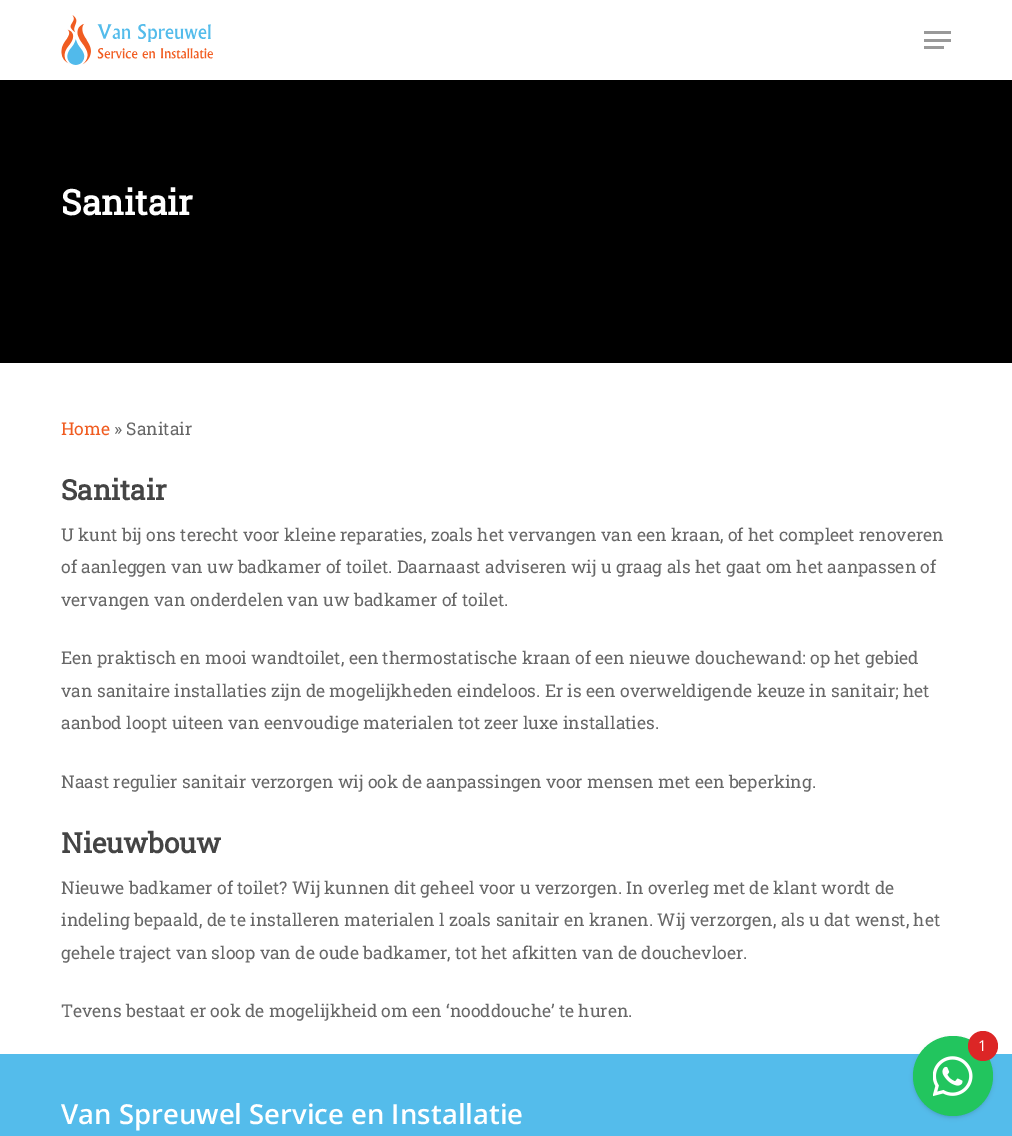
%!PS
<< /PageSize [1012 1136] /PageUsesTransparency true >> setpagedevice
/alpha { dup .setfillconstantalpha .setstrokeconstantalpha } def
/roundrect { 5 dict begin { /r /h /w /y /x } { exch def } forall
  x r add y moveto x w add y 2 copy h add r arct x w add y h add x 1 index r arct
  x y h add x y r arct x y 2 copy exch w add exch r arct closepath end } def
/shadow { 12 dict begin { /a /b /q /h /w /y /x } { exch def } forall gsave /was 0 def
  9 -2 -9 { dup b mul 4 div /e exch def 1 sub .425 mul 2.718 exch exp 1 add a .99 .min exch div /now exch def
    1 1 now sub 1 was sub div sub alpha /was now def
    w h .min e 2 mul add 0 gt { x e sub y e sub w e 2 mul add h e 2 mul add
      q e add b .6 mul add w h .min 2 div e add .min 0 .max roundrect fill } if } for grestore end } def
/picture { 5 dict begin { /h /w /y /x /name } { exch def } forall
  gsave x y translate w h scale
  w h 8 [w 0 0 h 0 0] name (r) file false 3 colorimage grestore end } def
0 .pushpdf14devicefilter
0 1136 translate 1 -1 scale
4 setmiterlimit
1 setgray
0 0 1012 1136 rectfill
(img1.rgb) 61 15 152 50 picture
0.6 setgray
924 31 27 3 rectfill
924 46 20 3 rectfill
924 39 27 3 rectfill
0 setgray
0 80 1012 283 rectfill
/RobotoSlab-Bold [35 0 0 -35 0 0] selectfont
1 setgray
61 215 moveto (Sanitair) show
/RobotoSlab-Regular [17.5 0 0 -17.5 0 0] selectfont
0.941 0.361 0.129 setrgbcolor
61 435 moveto (Home) show
0.404 setgray
114 435 moveto (» Sanitair) show
/RobotoSlab-Bold [28 0 0 -28 0 0] selectfont
0.267 setgray
61 500 moveto (Sanitair) show
/RobotoSlab-Regular [17.5 0 0 -17.5 0 0] selectfont
0.404 setgray
61 541 moveto (U kunt bij ons terecht voor kleine reparaties, zoals het vervangen van een kraan, of het compleet renoveren) show
61 573 moveto (of aanleggen van uw badkamer of toilet. Daarnaast adviseren wij u graag als het gaat om het aanpassen of) show
61 606 moveto (vervangen van onderdelen van uw badkamer of toilet.) show
61 664 moveto (Een praktisch en mooi wandtoilet, een thermostatische kraan of een nieuwe douchewand: op het gebied) show
61 697 moveto (van sanitaire installaties zijn de mogelijkheden eindeloos. Er is een overweldigende keuze in sanitair; het) show
61 729 moveto (aanbod loopt uiteen van eenvoudige materialen tot zeer luxe installaties.) show
61 788 moveto (Naast regulier sanitair verzorgen wij ook de aanpassingen voor mensen met een beperking.) show
/RobotoSlab-Bold [28 0 0 -28 0 0] selectfont
0.267 setgray
61 853 moveto (Nieuwbouw) show
/RobotoSlab-Regular [17.5 0 0 -17.5 0 0] selectfont
0.404 setgray
61 894 moveto (Nieuwe badkamer of toilet? Wij kunnen dit geheel voor u verzorgen. In overleg met de klant wordt de) show
61 926 moveto (indeling bepaald, de te installeren materialen l zoals sanitair en kranen. Wij verzorgen, als u dat wenst, het) show
61 959 moveto (gehele traject van sloop van de oude badkamer, tot het afkitten van de douchevloer.) show
61 1017 moveto (Tevens bestaat er ook de mogelijkheid om een ‘nooddouche’ te huren.) show
0.329 0.737 0.922 setrgbcolor
0 1054 1012 82 rectfill
/OpenSans-SemiBold [27.5 0 0 -27.5 0 0] selectfont
1 setgray
61 1124 moveto (Van Spreuwel Service en Installatie) show
0 setgray
914 1039 77 77 38.5 1 0.1 shadow
913 1038 80 80 40 2 0.1 shadow
0.133 0.773 0.369 setrgbcolor
newpath 953 1076 40 0 360 arc closepath fill
(img2.rgb) 933 1056 40 41 picture
0.863 0.149 0.149 setrgbcolor
newpath 983 1046 15 0 360 arc closepath fill
/OpenSans-Regular [15 0 0 -15 0 0] selectfont
1 setgray
978 1051 moveto (1) show
.poppdf14devicefilter showpage
